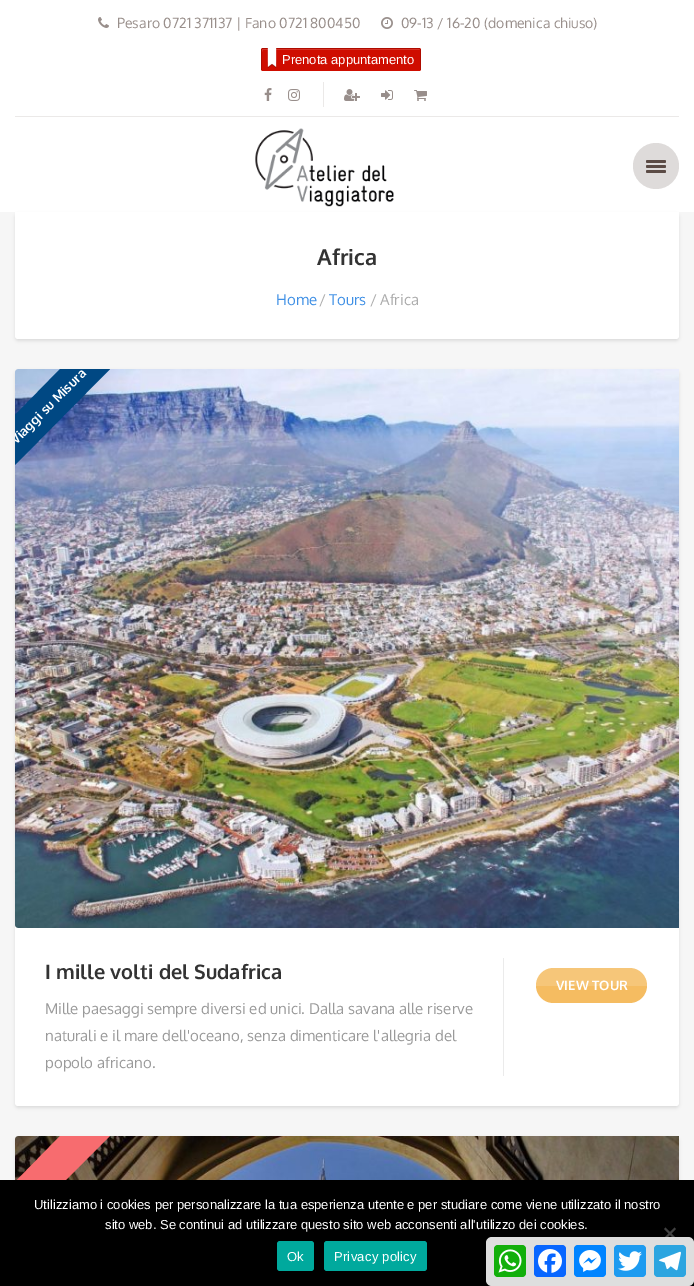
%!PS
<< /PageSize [694 1286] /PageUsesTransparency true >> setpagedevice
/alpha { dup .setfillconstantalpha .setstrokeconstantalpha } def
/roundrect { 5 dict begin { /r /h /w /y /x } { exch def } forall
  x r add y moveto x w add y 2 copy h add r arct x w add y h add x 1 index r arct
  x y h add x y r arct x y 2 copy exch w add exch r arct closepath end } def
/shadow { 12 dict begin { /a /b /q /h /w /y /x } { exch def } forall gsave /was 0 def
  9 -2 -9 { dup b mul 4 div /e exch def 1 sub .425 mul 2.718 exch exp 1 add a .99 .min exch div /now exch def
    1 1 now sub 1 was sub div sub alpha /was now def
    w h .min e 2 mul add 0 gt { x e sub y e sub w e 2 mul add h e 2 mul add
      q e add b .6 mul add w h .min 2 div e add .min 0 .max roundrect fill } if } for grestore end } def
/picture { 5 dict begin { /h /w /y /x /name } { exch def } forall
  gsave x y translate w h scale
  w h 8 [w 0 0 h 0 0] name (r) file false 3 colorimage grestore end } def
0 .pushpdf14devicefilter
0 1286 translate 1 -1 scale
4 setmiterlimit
0.965 setgray
0 0 694 1286 rectfill
1 setgray
0 0 694 212 rectfill
(img1.rgb) 98 17 11 11 picture
/Oxygen-Regular [14 0 0 -14 0 0] selectfont
0.6 0.561 0.545 setrgbcolor
117 28 moveto (Pesaro 0721 371137 | Fano 0721 800450) show
(img2.rgb) 381 17 12 12 picture
401 28 moveto (09-13 / 16-20 \(domenica chiuso\)) show
0.812 0.051 0 setrgbcolor
261 48 160 23 2 roundrect fill
0.839 0.192 0.149 setrgbcolor
newpath 263 50 moveto 420 50 lineto 419 49 lineto 263 49 lineto 261 49 262 52 262 52 curveto closepath 262 70 moveto 262 67 lineto closepath eofill
0.686 0.043 0 setrgbcolor
262 48 158 1 rectfill
420 49 1 21 rectfill
261 49 1 21 rectfill
(img3.rgb) 267 48 10 20 picture
/LiberationSans-Regular [13 0 0 -13 0 0] selectfont
1 setgray
282 64 moveto (Prenota appuntamento) show
(img4.rgb) 264 88 8 13 picture
(img5.rgb) 288 89 12 12 picture
0.922 0.914 0.91 setrgbcolor
323 82 1 25 rectfill
(img6.rgb) 344 89 16 12 picture
(img7.rgb) 381 90 12 10 picture
(img8.rgb) 414 90 13 11 picture
15 116 664 1 rectfill
(img9.rgb) 255 128 139 79 picture
0.871 0.859 0.855 setrgbcolor
newpath 656 166 23 0 360 arc closepath fill
0.357 0.294 0.271 setrgbcolor
646 165 20 3 1.5 roundrect fill
646 160 20 3 1.5 roundrect fill
646 170 20 3 1.5 roundrect fill
0 setgray
15 214 664 127 3 1.5 0.09 shadow
1 setgray
newpath 15 212 moveto 679 212 lineto 679 336 lineto 679 337.5 677.5 339 676 339 curveto 18 339 lineto 16.5 339 15 337.5 15 336 curveto closepath fill
/Oxygen-Bold [22 0 0 -22 0 0] selectfont
0.2 setgray
317 265 moveto (Africa) show
/Oxygen-Regular [15 0 0 -15 0 0] selectfont
0.251 0.565 0.898 setrgbcolor
276 305 moveto (Home) show
0.671 setgray
319 305 moveto (/) show
0.251 0.565 0.898 setrgbcolor
329 305 moveto (Tours) show
0.671 setgray
370 305 moveto (/) show
380 305 moveto (Africa) show
0 setgray
15 371 664 737 3 1.5 0.09 shadow
1 setgray
15 369 664 737 3 roundrect fill
0.918 setgray
newpath 18 369 moveto 679 369 lineto 679 928 lineto 18 928 lineto 16.5 928 15 926.5 15 925 curveto 15 372 lineto 15 370.5 16.5 369 18 369 curveto closepath fill
(img10.rgb) 15 369 664 559 picture
0 0.282 0.514 setrgbcolor
newpath 110 369 moveto 15 465 lineto 15 415 lineto 60 369 lineto closepath fill
gsave
newpath 18 369 moveto 679 369 lineto 679 928 lineto 18 928 lineto 16.5 928 15 926.5 15 925 curveto 15 372 lineto 15 370.5 16.5 369 18 369 curveto closepath clip newpath
/Oxygen-Bold [13 0 0 -13 0 0] selectfont
1 setgray
gsave 16 445 translate -45 rotate 0 0 moveto (Viaggi su Misura) show grestore
grestore
0.922 setgray
503 958 1 118 rectfill
/Oxygen-Bold [20 0 0 -20 0 0] selectfont
0.2 setgray
45 979 moveto (I mille volti del Sudafrica) show
/Oxygen-Regular [15 0 0 -15 0 0] selectfont
0.604 setgray
45 1014 moveto (Mille paesaggi sempre diversi ed unici. Dalla savana alle riserve) show
45 1041 moveto (naturali e il mare dell'oceano, senza dimenticare l'allegria del) show
45 1068 moveto (popolo africano.) show
0.961 0.737 0.38 setrgbcolor
536 968 111 35 17.5 roundrect fill
/Oxygen-Bold [13 0 0 -13 0 0] selectfont
1 setgray
556 990 moveto (VIEW TOUR) show
0.15 alpha
newpath 553.5 968 moveto 629.5 968 lineto 639 968 647 976 647 985.5 curveto 647 986 lineto 536 986 lineto 536 985.5 lineto 536 976 544 968 553.5 968 curveto closepath fill
1 alpha
0 setgray
15 1138 664 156 3 1.5 0.09 shadow
0.918 setgray
newpath 18 1136 moveto 679 1136 lineto 679 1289 lineto 18 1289 lineto 16.5 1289 15 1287.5 15 1286 curveto 15 1139 lineto 15 1137.5 16.5 1136 18 1136 curveto closepath fill
(img11.rgb) 15 1136 664 44 picture
0.969 0.424 0.435 setrgbcolor
newpath 110 1136 moveto 15 1231 lineto 15 1182 lineto 60 1136 lineto closepath fill
0 setgray
0 1180 694 106 rectfill
/LiberationSans-Regular [13 0 0 -13 0 0] selectfont
1 setgray
34 1209 moveto (Utilizziamo i cookies per personalizzare la tua esperienza utente e per studiare come viene utilizzato il nostro) show
105 1229 moveto (sito web. Se continui ad utilizzare questo sito web acconsenti all'utilizzo dei cookies.) show
0.251 setgray
newpath 674.5 1227.5 moveto 676 1229 lineto 665.5 1239.5 lineto 664 1238 lineto closepath fill
newpath 664 1229 moveto 665.5 1227.5 lineto 676 1238 lineto 674.5 1239.5 lineto closepath fill
0 0.663 0.616 setrgbcolor
277 1241 37 30 3 roundrect fill
1 setgray
287 1261 moveto 0.25 0 (Ok) ashow
0 0.663 0.616 setrgbcolor
324 1241 103 30 3 roundrect fill
1 setgray
334 1261 moveto 0.25 0 (Privacy policy) ashow
0.871 setgray
486 1237 208 49 6 roundrect fill
0.071 0.686 0.039 setrgbcolor
494 1245 32 32 4 roundrect fill
(img12.rgb) 498 1249 24 24 picture
0.031 0.4 1 setrgbcolor
534 1245 32 32 4 roundrect fill
(img13.rgb) 538 1249 24 24 picture
0 0.518 1 setrgbcolor
574 1245 32 32 4 roundrect fill
(img14.rgb) 579 1250 22 22 picture
0.114 0.608 0.941 setrgbcolor
614 1245 32 32 4 roundrect fill
(img15.rgb) 618 1251 24 20 picture
0.173 0.647 0.878 setrgbcolor
654 1245 32 32 4 roundrect fill
(img16.rgb) 659 1251 22 20 picture
.poppdf14devicefilter showpage
